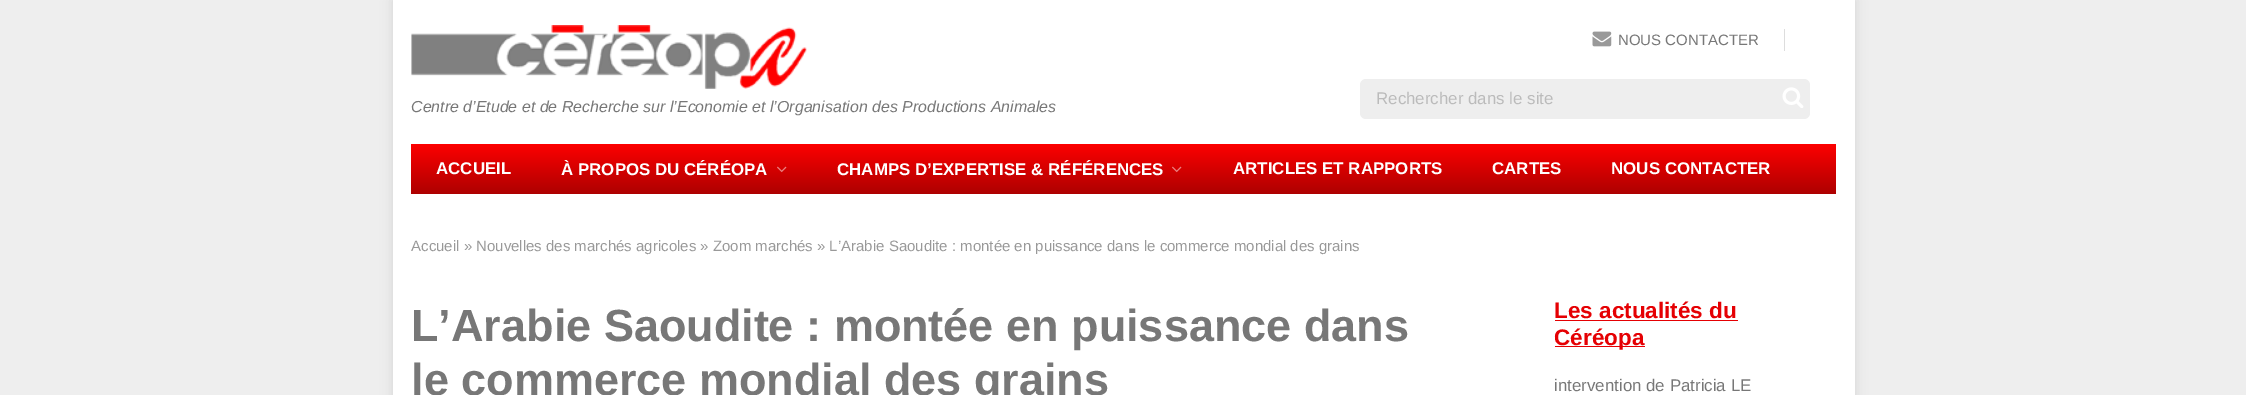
%!PS
<< /PageSize [2246 395] /PageUsesTransparency true >> setpagedevice
/alpha { dup .setfillconstantalpha .setstrokeconstantalpha } def
/roundrect { 5 dict begin { /r /h /w /y /x } { exch def } forall
  x r add y moveto x w add y 2 copy h add r arct x w add y h add x 1 index r arct
  x y h add x y r arct x y 2 copy exch w add exch r arct closepath end } def
/shadow { 12 dict begin { /a /b /q /h /w /y /x } { exch def } forall gsave /was 0 def
  9 -2 -9 { dup b mul 4 div /e exch def 1 sub .425 mul 2.718 exch exp 1 add a .99 .min exch div /now exch def
    1 1 now sub 1 was sub div sub alpha /was now def
    w h .min e 2 mul add 0 gt { x e sub y e sub w e 2 mul add h e 2 mul add
      q e add b .6 mul add w h .min 2 div e add .min 0 .max roundrect fill } if } for grestore end } def
/picture { 5 dict begin { /h /w /y /x /name } { exch def } forall
  gsave x y translate w h scale
  w h 8 [w 0 0 h 0 0] name (r) file false 3 colorimage grestore end } def
0 .pushpdf14devicefilter
0 395 translate 1 -1 scale
4 setmiterlimit
0.933 setgray
0 0 2246 395 rectfill
0 setgray
393 0 1462 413 0 6 0.1 shadow
1 setgray
393 0 1462 395 rectfill
(img1.rgb) 1592 31 20 16 picture
0.867 setgray
1784 29 1 22 rectfill
/LiberationSans-Regular [15 0 0 -15 0 0] selectfont
0.467 setgray
1618 45 moveto (NOUS CONTACTER) show
0.933 setgray
1360 79 450 40 6 roundrect fill
/LiberationSans-Regular [16.9 0 0 -16.9 0 0] selectfont
0.733 setgray
1376 104 moveto (Rechercher dans le site) show
(img2.rgb) 1782 87 22 21 picture
(img3.rgb) 411 25 396 64 picture
/LiberationSans-Italic [15.95 0 0 -15.95 0 0] selectfont
0.467 setgray
411 112 moveto (Centre d’Etude et de Recherche sur l’Economie et l’Organisation des Productions Animales) show
gsave newpath 411 144 moveto 1836 144 lineto 1836 194 lineto 411 194 lineto closepath clip newpath
<< /ShadingType 2 /ColorSpace /DeviceRGB /Coords [1124 144 1124 194] /Extend [true true] /Function << /FunctionType 2 /Domain [0 1] /C0 [0.992 0 0] /C1 [0.678 0 0] /N 1 >> >> shfill grestore
/LiberationSans-Bold [16.9 0 0 -16.9 0 0] selectfont
1 setgray
436 174 moveto (ACCUEIL) show
561 175 moveto (À PROPOS DU CÉRÉOPA) show
(img4.rgb) 777 166 10 7 picture
837 175 moveto (CHAMPS D’EXPERTISE & RÉFÉRENCES) show
(img4.rgb) 1172 166 10 7 picture
1233 174 moveto (ARTICLES ET RAPPORTS) show
1492 174 moveto (CARTES) show
1611 174 moveto (NOUS CONTACTER) show
/LiberationSans-Regular [15 0 0 -15 0 0] selectfont
0.6 setgray
411 251 moveto (Accueil » Nouvelles des marchés agricoles » Zoom marchés » L’Arabie Saoudite : montée en puissance dans le commerce mondial des grains) show
/LiberationSans-Bold [45 0 0 -45 0 0] selectfont
0.467 setgray
411 341 moveto (L’Arabie Saoudite : montée en puissance dans) show
411 395 moveto (le commerce mondial des grains) show
/LiberationSans-Bold [22.5 0 0 -22.5 0 0] selectfont
0.898 0 0.012 setrgbcolor
1554 318 moveto (Les actualités du) show
1555 320 183 1 rectfill
1555 346 90 1 rectfill
1554 345 moveto (Céréopa) show
/LiberationSans-Regular [16.9 0 0 -16.9 0 0] selectfont
0.467 setgray
1554 391 moveto (intervention de Patricia LE) show
.poppdf14devicefilter showpage
